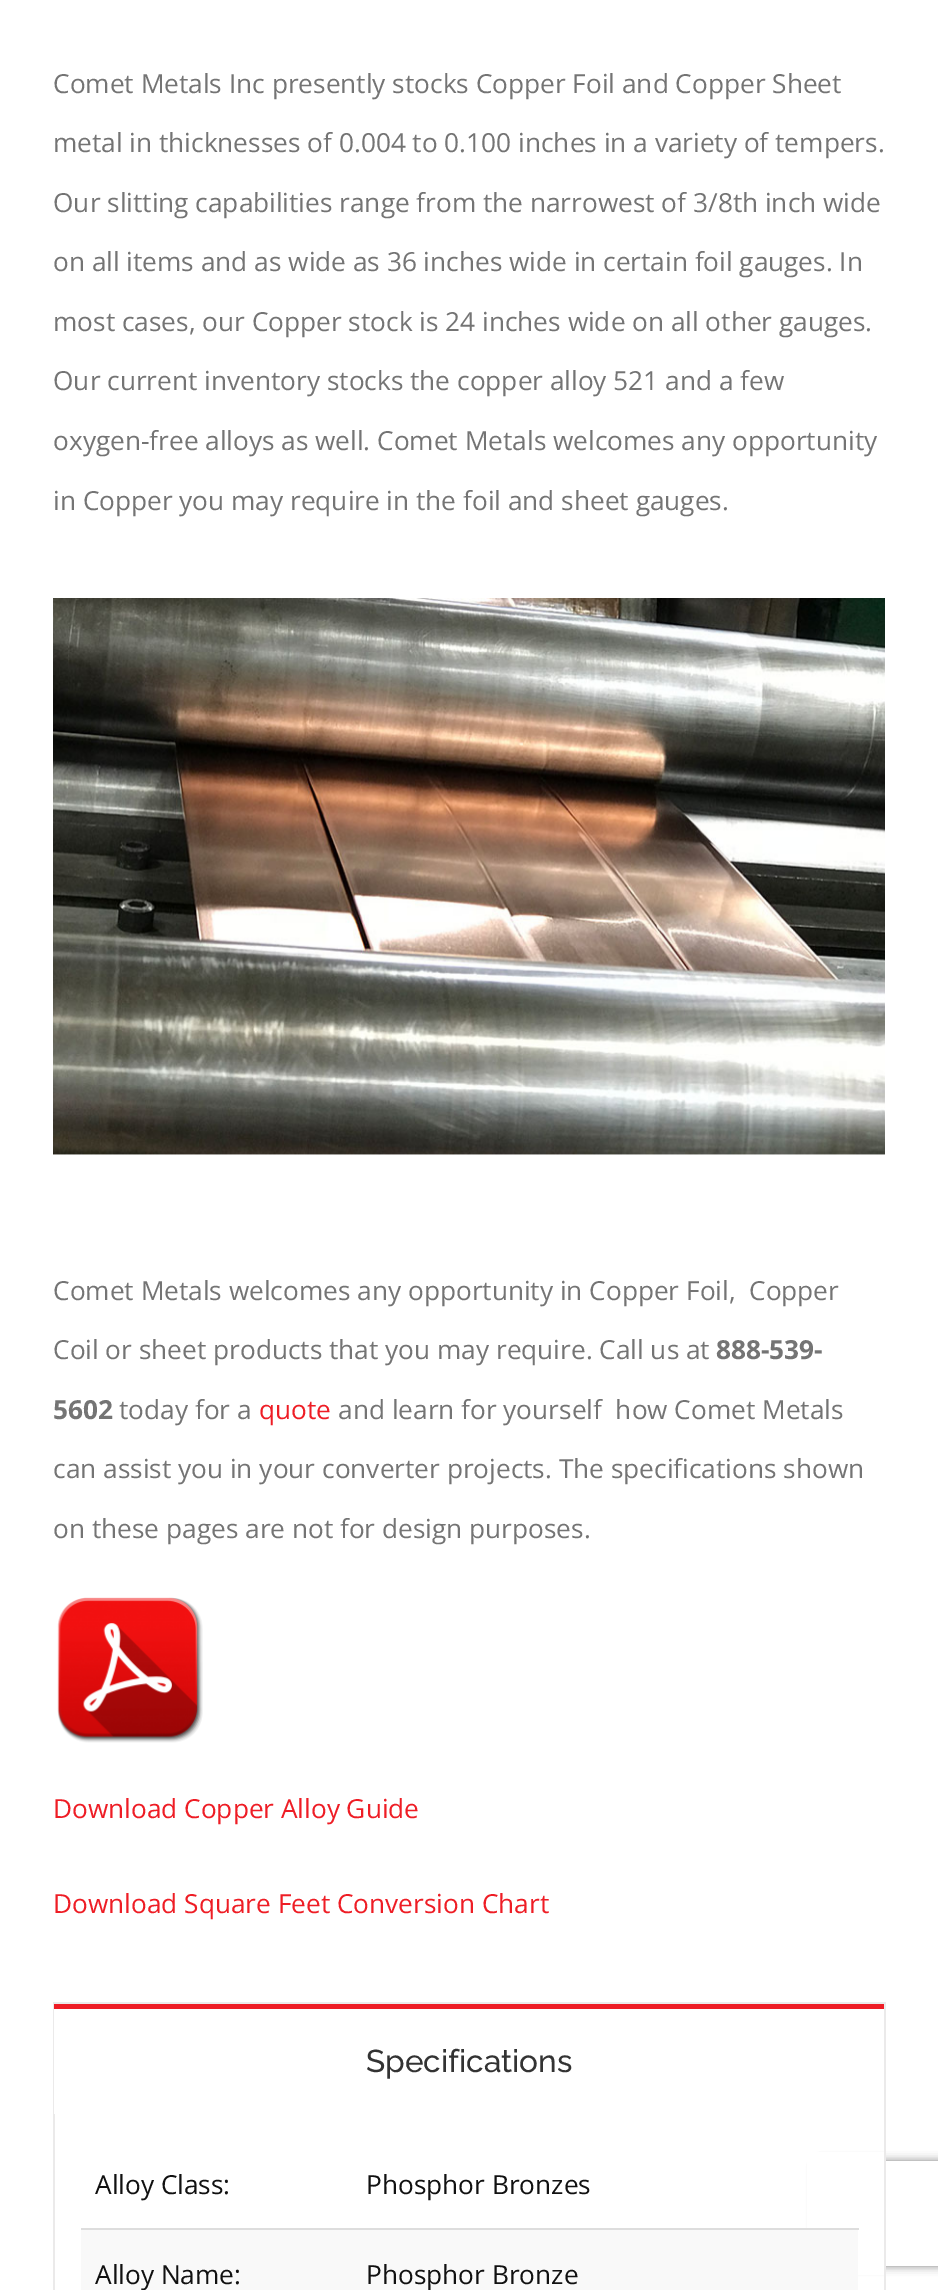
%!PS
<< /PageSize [938 2290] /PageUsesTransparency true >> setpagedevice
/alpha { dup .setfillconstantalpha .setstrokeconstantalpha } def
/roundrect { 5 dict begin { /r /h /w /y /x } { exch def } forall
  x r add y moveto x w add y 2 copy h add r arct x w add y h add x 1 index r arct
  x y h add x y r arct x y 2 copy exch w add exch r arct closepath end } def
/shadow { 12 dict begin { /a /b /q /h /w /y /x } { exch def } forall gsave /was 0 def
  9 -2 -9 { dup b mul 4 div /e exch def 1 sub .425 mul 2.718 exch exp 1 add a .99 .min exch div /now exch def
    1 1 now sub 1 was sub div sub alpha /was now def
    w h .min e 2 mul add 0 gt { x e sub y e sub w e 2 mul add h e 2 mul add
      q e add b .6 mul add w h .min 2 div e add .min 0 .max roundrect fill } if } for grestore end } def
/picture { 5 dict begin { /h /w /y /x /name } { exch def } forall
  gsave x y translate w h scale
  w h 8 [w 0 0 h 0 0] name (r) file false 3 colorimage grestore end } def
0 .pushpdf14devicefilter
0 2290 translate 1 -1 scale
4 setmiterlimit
1 setgray
0 0 938 2290 rectfill
/OpenSans-Regular [26.25 0 0 -26.25 0 0] selectfont
0.455 setgray
53 93 moveto (Comet Metals Inc presently stocks Copper Foil and Copper Sheet) show
53 152 moveto (metal in thicknesses of 0.004 to 0.100 inches in a variety of tempers.) show
53 212 moveto (Our slitting capabilities range from the narrowest of 3/8th inch wide) show
53 271 moveto (on all items and as wide as 36 inches wide in certain foil gauges. In) show
53 331 moveto (most cases, our Copper stock is 24 inches wide on all other gauges.) show
53 390 moveto (Our current inventory stocks the copper alloy 521 and a few) show
53 450 moveto (oxygen-free alloys as well. Comet Metals welcomes any opportunity) show
53 510 moveto (in Copper you may require in the foil and sheet gauges.) show
(img1.rgb) 53 598 832 557 picture
53 1300 moveto (Comet Metals welcomes any opportunity in Copper Foil,  Copper) show
53 1359 moveto (Coil or sheet products that you may require. Call us at) show
/OpenSans-Bold [26.25 0 0 -26.25 0 0] selectfont
716 1359 moveto (888-539-) show
53 1419 moveto (5602) show
/OpenSans-Regular [26.25 0 0 -26.25 0 0] selectfont
119 1419 moveto (today for a) show
0.933 0.114 0.145 setrgbcolor
259 1419 moveto (quote) show
0.455 setgray
338 1419 moveto (and learn for yourself  how Comet Metals) show
53 1478 moveto (can assist you in your converter projects. The specifications shown) show
53 1538 moveto (on these pages are not for design purposes.) show
(img2.rgb) 57 1597 146 146 picture
0.933 0.114 0.145 setrgbcolor
53 1818 moveto (Download Copper Alloy Guide) show
53 1913 moveto (Download Square Feet Conversion Chart) show
0.922 0.918 0.918 setrgbcolor
53 2002 833 2 rectfill
gsave
newpath 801 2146 moveto 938 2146 lineto 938 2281 lineto 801 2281 lineto closepath 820 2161 moveto 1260 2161 lineto 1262 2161 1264 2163 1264 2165 curveto 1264 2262 lineto 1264 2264 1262 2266 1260 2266 curveto 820 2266 lineto 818 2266 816 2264 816 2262 curveto 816 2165 lineto 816 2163 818 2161 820 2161 curveto closepath eoclip newpath
0.502 setgray
816 2161 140 105 4 4.5 1 shadow
grestore
884 2002 2 288 rectfill
53 2002 2 288 rectfill
1 setgray
54 2009 1 105 rectfill
0.933 0.114 0.145 setrgbcolor
54 2004 830 5 rectfill
/Raleway-Thin [31.5 0 0 -31.5 0 0] selectfont
0.2 setgray
366 2072 moveto (Specifications) show
1 setgray
807 2152 77 123 rectfill
/OpenSans-Regular [26.25 0 0 -26.25 0 0] selectfont
0.067 setgray
95 2194 moveto (Alloy Class:) show
366 2194 moveto (Phosphor Bronzes) show
0.976 setgray
81 2230 777 60 rectfill
0.067 setgray
95 2284 moveto (Alloy Name:) show
0.867 setgray
81 2228 778 2 rectfill
0.067 setgray
366 2284 moveto (Phosphor Bronze) show
.poppdf14devicefilter showpage
